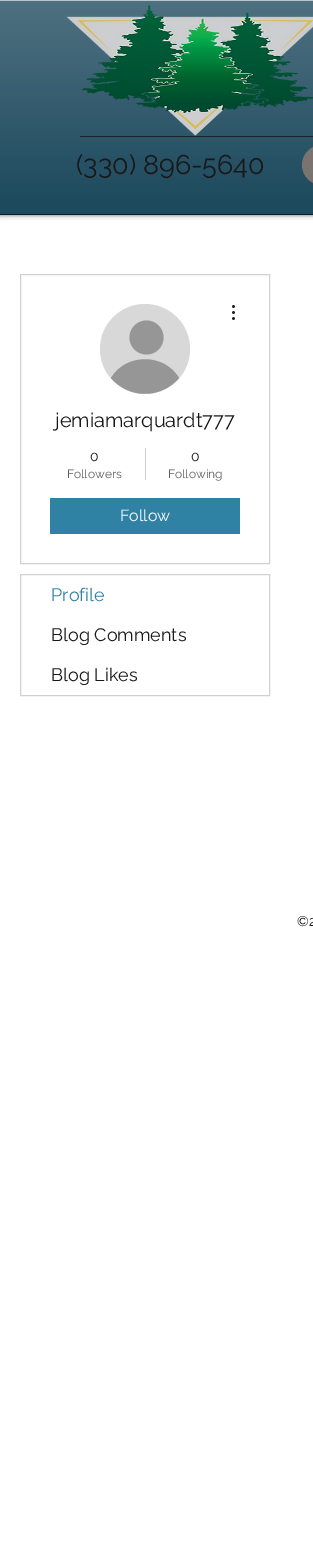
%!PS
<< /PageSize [313 1551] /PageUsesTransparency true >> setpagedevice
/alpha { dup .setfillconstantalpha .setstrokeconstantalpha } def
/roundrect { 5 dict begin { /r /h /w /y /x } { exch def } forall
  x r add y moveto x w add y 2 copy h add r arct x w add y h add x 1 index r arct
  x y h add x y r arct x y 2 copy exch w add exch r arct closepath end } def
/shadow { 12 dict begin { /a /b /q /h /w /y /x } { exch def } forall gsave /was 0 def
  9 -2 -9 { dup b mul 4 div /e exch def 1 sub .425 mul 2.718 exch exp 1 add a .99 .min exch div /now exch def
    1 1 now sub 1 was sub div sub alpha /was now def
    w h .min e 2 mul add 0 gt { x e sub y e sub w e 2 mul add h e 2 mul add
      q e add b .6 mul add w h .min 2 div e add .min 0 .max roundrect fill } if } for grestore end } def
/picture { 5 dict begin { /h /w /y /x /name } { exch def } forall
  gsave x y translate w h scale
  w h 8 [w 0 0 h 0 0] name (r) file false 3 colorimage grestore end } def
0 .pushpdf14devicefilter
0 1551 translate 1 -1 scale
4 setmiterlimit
1 setgray
0 0 313 1551 rectfill
0 setgray
0 0 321 215 0 2.5 0.6 shadow
0.063 0.247 0.329 setrgbcolor
0 1 313 213 rectfill
(img1.rgb) 0 1 313 213 picture
0.043 0.114 0.145 setrgbcolor
0 214 313 1 rectfill
0.722 0.776 0.8 setrgbcolor
0 0 313 1 rectfill
(img2.rgb) 66 5 247 131 picture
0.106 0.129 0.141 setrgbcolor
80 136 233 1 rectfill
/Raleway-Regular [27 0 0 -27 0 0] selectfont
0.094 setgray
76 174 moveto (\(330\) 896-5640) show
0.482 0.451 0.435 setrgbcolor
302 145 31 40 20 roundrect fill
0.82 setgray
20.5 274.5 249 289 rectstroke
0.847 setgray
newpath 145 349 45 0 360 arc closepath fill
0.588 setgray
newpath 146.5 337.5 17 0 360 arc closepath fill
newpath 179 378 moveto 161 399 129 399 111 378 curveto 126 353 164 353 179 378 curveto closepath fill
(img3.rgb) 232 305 3 15 picture
/Raleway-Regular [20 0 0 -20 0 0] selectfont
0.094 setgray
55 427 moveto (jemiamarquardt777) show
/Raleway-Regular [14 0 0 -14 0 0] selectfont
90 461 moveto (0) show
/Raleway-Regular [12 0 0 -12 0 0] selectfont
0.365 setgray
67 478 moveto (Followers) show
0.82 setgray
145 448 1 32 rectfill
/Raleway-Regular [14 0 0 -14 0 0] selectfont
0.094 setgray
191 461 moveto (0) show
/Raleway-Regular [12 0 0 -12 0 0] selectfont
0.365 setgray
168 478 moveto (Following) show
0.188 0.51 0.643 setrgbcolor
50 498 190 36 rectfill
/Raleway-Regular [16 0 0 -16 0 0] selectfont
1 setgray
120 521 moveto (Follow) show
0.82 setgray
20.5 574.5 249 121 rectstroke
/Raleway-Regular [18 0 0 -18 0 0] selectfont
0.188 0.51 0.643 setrgbcolor
51 601 moveto (Profile) show
0.094 setgray
51 641 moveto (Blog Comments) show
51 681 moveto (Blog Likes) show
/Raleway-Regular [14 0 0 -14 0 0] selectfont
297 926 moveto (©2) show
.poppdf14devicefilter showpage
